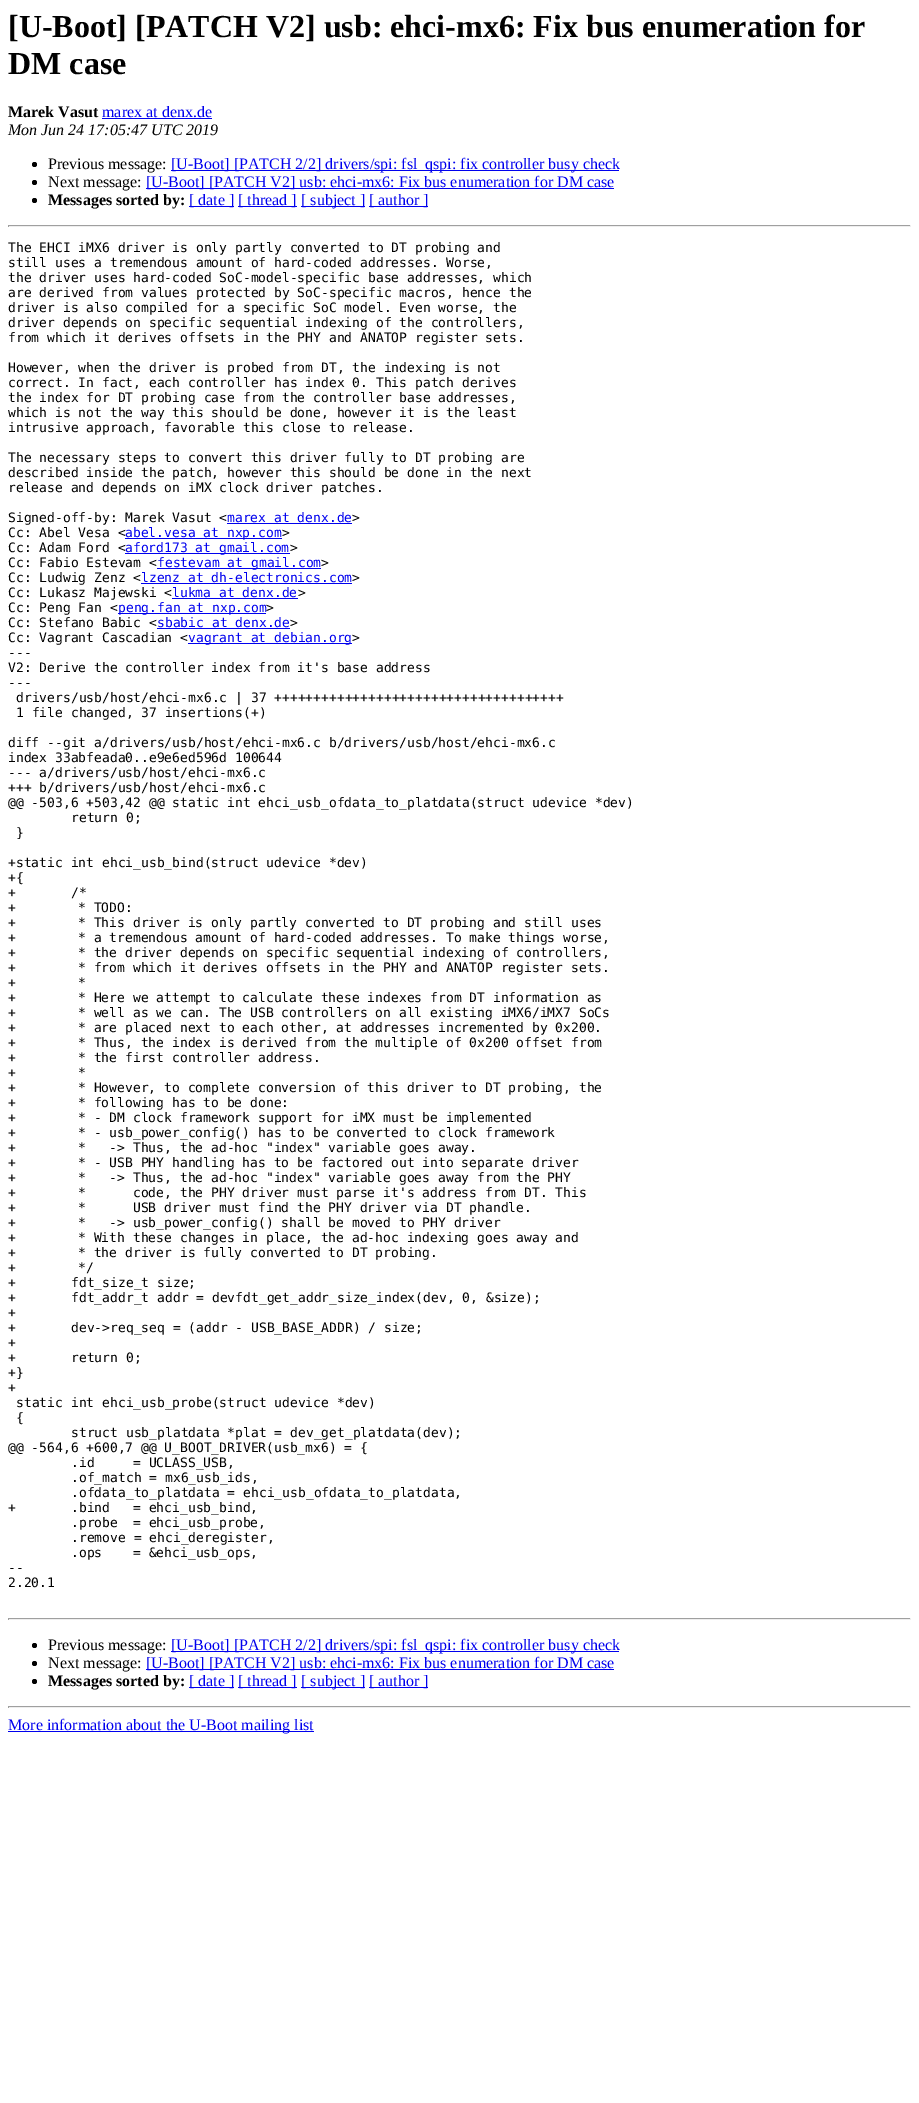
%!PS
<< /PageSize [919 2103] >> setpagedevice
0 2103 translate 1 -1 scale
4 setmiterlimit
1 setgray
0 0 919 2103 rectfill
/LiberationSerif-Bold [32 0 0 -32 0 0] selectfont
0 setgray
8 37 moveto ([U-Boot] [PATCH V2] usb: ehci-mx6: Fix bus enumeration for) show
8 74 moveto (DM case) show
/LiberationSerif-Bold [16 0 0 -16 0 0] selectfont
8 117 moveto (Marek Vasut) show
/LiberationSerif-Regular [16 0 0 -16 0 0] selectfont
0 0 0.933 setrgbcolor
102 117 moveto (marex at denx.de) show
102 118 110 1 rectfill
/LiberationSerif-Italic [16 0 0 -16 0 0] selectfont
0 setgray
8 135 moveto (Mon Jun 24 17:05:47 UTC 2019) show
newpath 34.5 164.5 2.5 0 360 arc closepath fill
/LiberationSerif-Regular [16 0 0 -16 0 0] selectfont
48 169 moveto (Previous message:) show
0 0 0.933 setrgbcolor
171 170 448 1 rectfill
171 169 moveto ([U-Boot] [PATCH 2/2] drivers/spi: fsl_qspi: fix controller busy check) show
0 setgray
newpath 34.5 182.5 2.5 0 360 arc closepath fill
48 187 moveto (Next message:) show
0 0 0.933 setrgbcolor
146 188 468 1 rectfill
146 187 moveto ([U-Boot] [PATCH V2] usb: ehci-mx6: Fix bus enumeration for DM case) show
0 setgray
newpath 34.5 200.5 2.5 0 360 arc closepath fill
/LiberationSerif-Bold [16 0 0 -16 0 0] selectfont
48 205 moveto (Messages sorted by:) show
0 0 0.933 setrgbcolor
189 206 45 1 rectfill
/LiberationSerif-Regular [16 0 0 -16 0 0] selectfont
189 205 moveto ([ date ]) show
238 206 59 1 rectfill
238 205 moveto ([ thread ]) show
301 206 64 1 rectfill
301 205 moveto ([ subject ]) show
369 206 59 1 rectfill
369 205 moveto ([ author ]) show
0.624 setgray
8 225 903 1 rectfill
0.933 setgray
910 225 1 2 rectfill
8 226 903 1 rectfill
0.624 setgray
8 225 1 2 rectfill
/DejaVuSansMono-Regular [13 0 0 -13 0 0] selectfont
0 setgray
8 252 moveto (The EHCI iMX6 driver is only partly converted to DT probing and) show
8 267 moveto (still uses a tremendous amount of hard-coded addresses. Worse,) show
8 282 moveto (the driver uses hard-coded SoC-model-specific base addresses, which) show
8 297 moveto (are derived from values protected by SoC-specific macros, hence the) show
8 312 moveto (driver is also compiled for a specific SoC model. Even worse, the) show
8 327 moveto (driver depends on specific sequential indexing of the controllers,) show
8 342 moveto (from which it derives offsets in the PHY and ANATOP register sets.) show
8 372 moveto (However, when the driver is probed from DT, the indexing is not) show
8 387 moveto (correct. In fact, each controller has index 0. This patch derives) show
8 402 moveto (the index for DT probing case from the controller base addresses,) show
8 417 moveto (which is not the way this should be done, however it is the least) show
8 432 moveto (intrusive approach, favorable this close to release.) show
8 462 moveto (The necessary steps to convert this driver fully to DT probing are) show
8 477 moveto (described inside the patch, however this should be done in the next) show
8 492 moveto (release and depends on iMX clock driver patches.) show
8 522 moveto (Signed-off-by: Marek Vasut <) show
0 0 0.933 setrgbcolor
227 522 moveto (marex at denx.de) show
227 523 125 1 rectfill
0 setgray
352 522 moveto (>) show
8 537 moveto (Cc: Abel Vesa <) show
0 0 0.933 setrgbcolor
125 538 157 1 rectfill
125 537 moveto (abel.vesa at nxp.com) show
0 setgray
282 537 moveto (>) show
8 552 moveto (Cc: Adam Ford <) show
0 0 0.933 setrgbcolor
125 553 165 1 rectfill
125 552 moveto (aford173 at gmail.com) show
0 setgray
290 552 moveto (>) show
8 567 moveto (Cc: Fabio Estevam <) show
0 0 0.933 setrgbcolor
157 568 164 1 rectfill
157 567 moveto (festevam at gmail.com) show
0 setgray
321 567 moveto (>) show
8 582 moveto (Cc: Ludwig Zenz <) show
0 0 0.933 setrgbcolor
141 582 moveto (lzenz at dh-electronics.com) show
141 583 211 1 rectfill
0 setgray
352 582 moveto (>) show
8 597 moveto (Cc: Lukasz Majewski <) show
0 0 0.933 setrgbcolor
172 597 moveto (lukma at denx.de) show
172 598 126 1 rectfill
0 setgray
298 597 moveto (>) show
8 612 moveto (Cc: Peng Fan <) show
0 0 0.933 setrgbcolor
118 613 148 1 rectfill
118 612 moveto (peng.fan at nxp.com) show
0 setgray
266 612 moveto (>) show
8 627 moveto (Cc: Stefano Babic <) show
0 0 0.933 setrgbcolor
157 627 moveto (sbabic at denx.de) show
157 628 133 1 rectfill
0 setgray
290 627 moveto (>) show
8 642 moveto (Cc: Vagrant Cascadian <) show
0 0 0.933 setrgbcolor
188 643 164 1 rectfill
188 642 moveto (vagrant at debian.org) show
0 setgray
352 642 moveto (>) show
8 657 moveto (---) show
8 672 moveto (V2: Derive the controller index from it's base address) show
8 687 moveto (---) show
16 702 moveto (drivers/usb/host/ehci-mx6.c | 37 +++++++++++++++++++++++++++++++++++++) show
16 717 moveto (1 file changed, 37 insertions\(+\)) show
8 747 moveto (diff --git a/drivers/usb/host/ehci-mx6.c b/drivers/usb/host/ehci-mx6.c) show
8 762 moveto (index 33abfeada0..e9e6ed596d 100644) show
8 777 moveto (--- a/drivers/usb/host/ehci-mx6.c) show
8 792 moveto (+++ b/drivers/usb/host/ehci-mx6.c) show
8 807 moveto (@@ -503,6 +503,42 @@ static int ehci_usb_ofdata_to_platdata\(struct udevice *dev\)) show
71 822 moveto (return 0;) show
16 837 moveto (}) show
8 867 moveto (+static int ehci_usb_bind\(struct udevice *dev\)) show
8 882 moveto (+{) show
8 897 moveto (+) show
71 897 moveto (/*) show
8 912 moveto (+) show
78 912 moveto (* TODO:) show
8 927 moveto (+) show
78 927 moveto (* This driver is only partly converted to DT probing and still uses) show
8 942 moveto (+) show
78 942 moveto (* a tremendous amount of hard-coded addresses. To make things worse,) show
8 957 moveto (+) show
78 957 moveto (* the driver depends on specific sequential indexing of controllers,) show
8 972 moveto (+) show
78 972 moveto (* from which it derives offsets in the PHY and ANATOP register sets.) show
8 987 moveto (+) show
78 987 moveto (*) show
8 1002 moveto (+) show
78 1002 moveto (* Here we attempt to calculate these indexes from DT information as) show
8 1017 moveto (+) show
78 1017 moveto (* well as we can. The USB controllers on all existing iMX6/iMX7 SoCs) show
8 1032 moveto (+) show
78 1032 moveto (* are placed next to each other, at addresses incremented by 0x200.) show
8 1047 moveto (+) show
78 1047 moveto (* Thus, the index is derived from the multiple of 0x200 offset from) show
8 1062 moveto (+) show
78 1062 moveto (* the first controller address.) show
8 1077 moveto (+) show
78 1077 moveto (*) show
8 1092 moveto (+) show
78 1092 moveto (* However, to complete conversion of this driver to DT probing, the) show
8 1107 moveto (+) show
78 1107 moveto (* following has to be done:) show
8 1122 moveto (+) show
78 1122 moveto (* - DM clock framework support for iMX must be implemented) show
8 1137 moveto (+) show
78 1137 moveto (* - usb_power_config\(\) has to be converted to clock framework) show
8 1152 moveto (+) show
78 1152 moveto (*   -> Thus, the ad-hoc "index" variable goes away.) show
8 1167 moveto (+) show
78 1167 moveto (* - USB PHY handling has to be factored out into separate driver) show
8 1182 moveto (+) show
78 1182 moveto (*   -> Thus, the ad-hoc "index" variable goes away from the PHY) show
8 1197 moveto (+) show
78 1197 moveto (*      code, the PHY driver must parse it's address from DT. This) show
8 1212 moveto (+) show
78 1212 moveto (*      USB driver must find the PHY driver via DT phandle.) show
8 1227 moveto (+) show
78 1227 moveto (*   -> usb_power_config\(\) shall be moved to PHY driver) show
8 1242 moveto (+) show
78 1242 moveto (* With these changes in place, the ad-hoc indexing goes away and) show
8 1257 moveto (+) show
78 1257 moveto (* the driver is fully converted to DT probing.) show
8 1272 moveto (+) show
78 1272 moveto (*/) show
8 1287 moveto (+) show
71 1287 moveto (fdt_size_t size;) show
8 1302 moveto (+) show
71 1302 moveto (fdt_addr_t addr = devfdt_get_addr_size_index\(dev, 0, &size\);) show
8 1317 moveto (+) show
8 1332 moveto (+) show
71 1332 moveto (dev->req_seq = \(addr - USB_BASE_ADDR\) / size;) show
8 1347 moveto (+) show
8 1362 moveto (+) show
71 1362 moveto (return 0;) show
8 1377 moveto (+}) show
8 1392 moveto (+) show
16 1407 moveto (static int ehci_usb_probe\(struct udevice *dev\)) show
16 1422 moveto ({) show
71 1437 moveto (struct usb_platdata *plat = dev_get_platdata\(dev\);) show
8 1452 moveto (@@ -564,6 +600,7 @@ U_BOOT_DRIVER\(usb_mx6\) = {) show
71 1467 moveto (.id) show
133 1467 moveto (= UCLASS_USB,) show
71 1482 moveto (.of_match = mx6_usb_ids,) show
71 1497 moveto (.ofdata_to_platdata = ehci_usb_ofdata_to_platdata,) show
8 1512 moveto (+) show
71 1512 moveto (.bind) show
133 1512 moveto (= ehci_usb_bind,) show
71 1527 moveto (.probe) show
133 1527 moveto (= ehci_usb_probe,) show
71 1542 moveto (.remove = ehci_deregister,) show
71 1557 moveto (.ops) show
133 1557 moveto (= &ehci_usb_ops,) show
8 1572 moveto (--) show
8 1587 moveto (2.20.1) show
0.624 setgray
8 1618 903 1 rectfill
0.933 setgray
910 1618 1 2 rectfill
8 1619 903 1 rectfill
0.624 setgray
8 1618 1 2 rectfill
0 setgray
newpath 34.5 1645.5 2.5 0 360 arc closepath fill
/LiberationSerif-Regular [16 0 0 -16 0 0] selectfont
48 1650 moveto (Previous message:) show
0 0 0.933 setrgbcolor
171 1651 448 1 rectfill
171 1650 moveto ([U-Boot] [PATCH 2/2] drivers/spi: fsl_qspi: fix controller busy check) show
0 setgray
newpath 34.5 1663.5 2.5 0 360 arc closepath fill
48 1668 moveto (Next message:) show
0 0 0.933 setrgbcolor
146 1669 468 1 rectfill
146 1668 moveto ([U-Boot] [PATCH V2] usb: ehci-mx6: Fix bus enumeration for DM case) show
0 setgray
newpath 34.5 1681.5 2.5 0 360 arc closepath fill
/LiberationSerif-Bold [16 0 0 -16 0 0] selectfont
48 1686 moveto (Messages sorted by:) show
0 0 0.933 setrgbcolor
189 1687 45 1 rectfill
/LiberationSerif-Regular [16 0 0 -16 0 0] selectfont
189 1686 moveto ([ date ]) show
238 1687 59 1 rectfill
238 1686 moveto ([ thread ]) show
301 1687 64 1 rectfill
301 1686 moveto ([ subject ]) show
369 1687 59 1 rectfill
369 1686 moveto ([ author ]) show
0.624 setgray
8 1706 903 1 rectfill
0.933 setgray
910 1706 1 2 rectfill
8 1707 903 1 rectfill
0.624 setgray
8 1706 1 2 rectfill
0 0 0.933 setrgbcolor
8 1731 306 1 rectfill
8 1730 moveto (More information about the U-Boot mailing list) show
showpage
